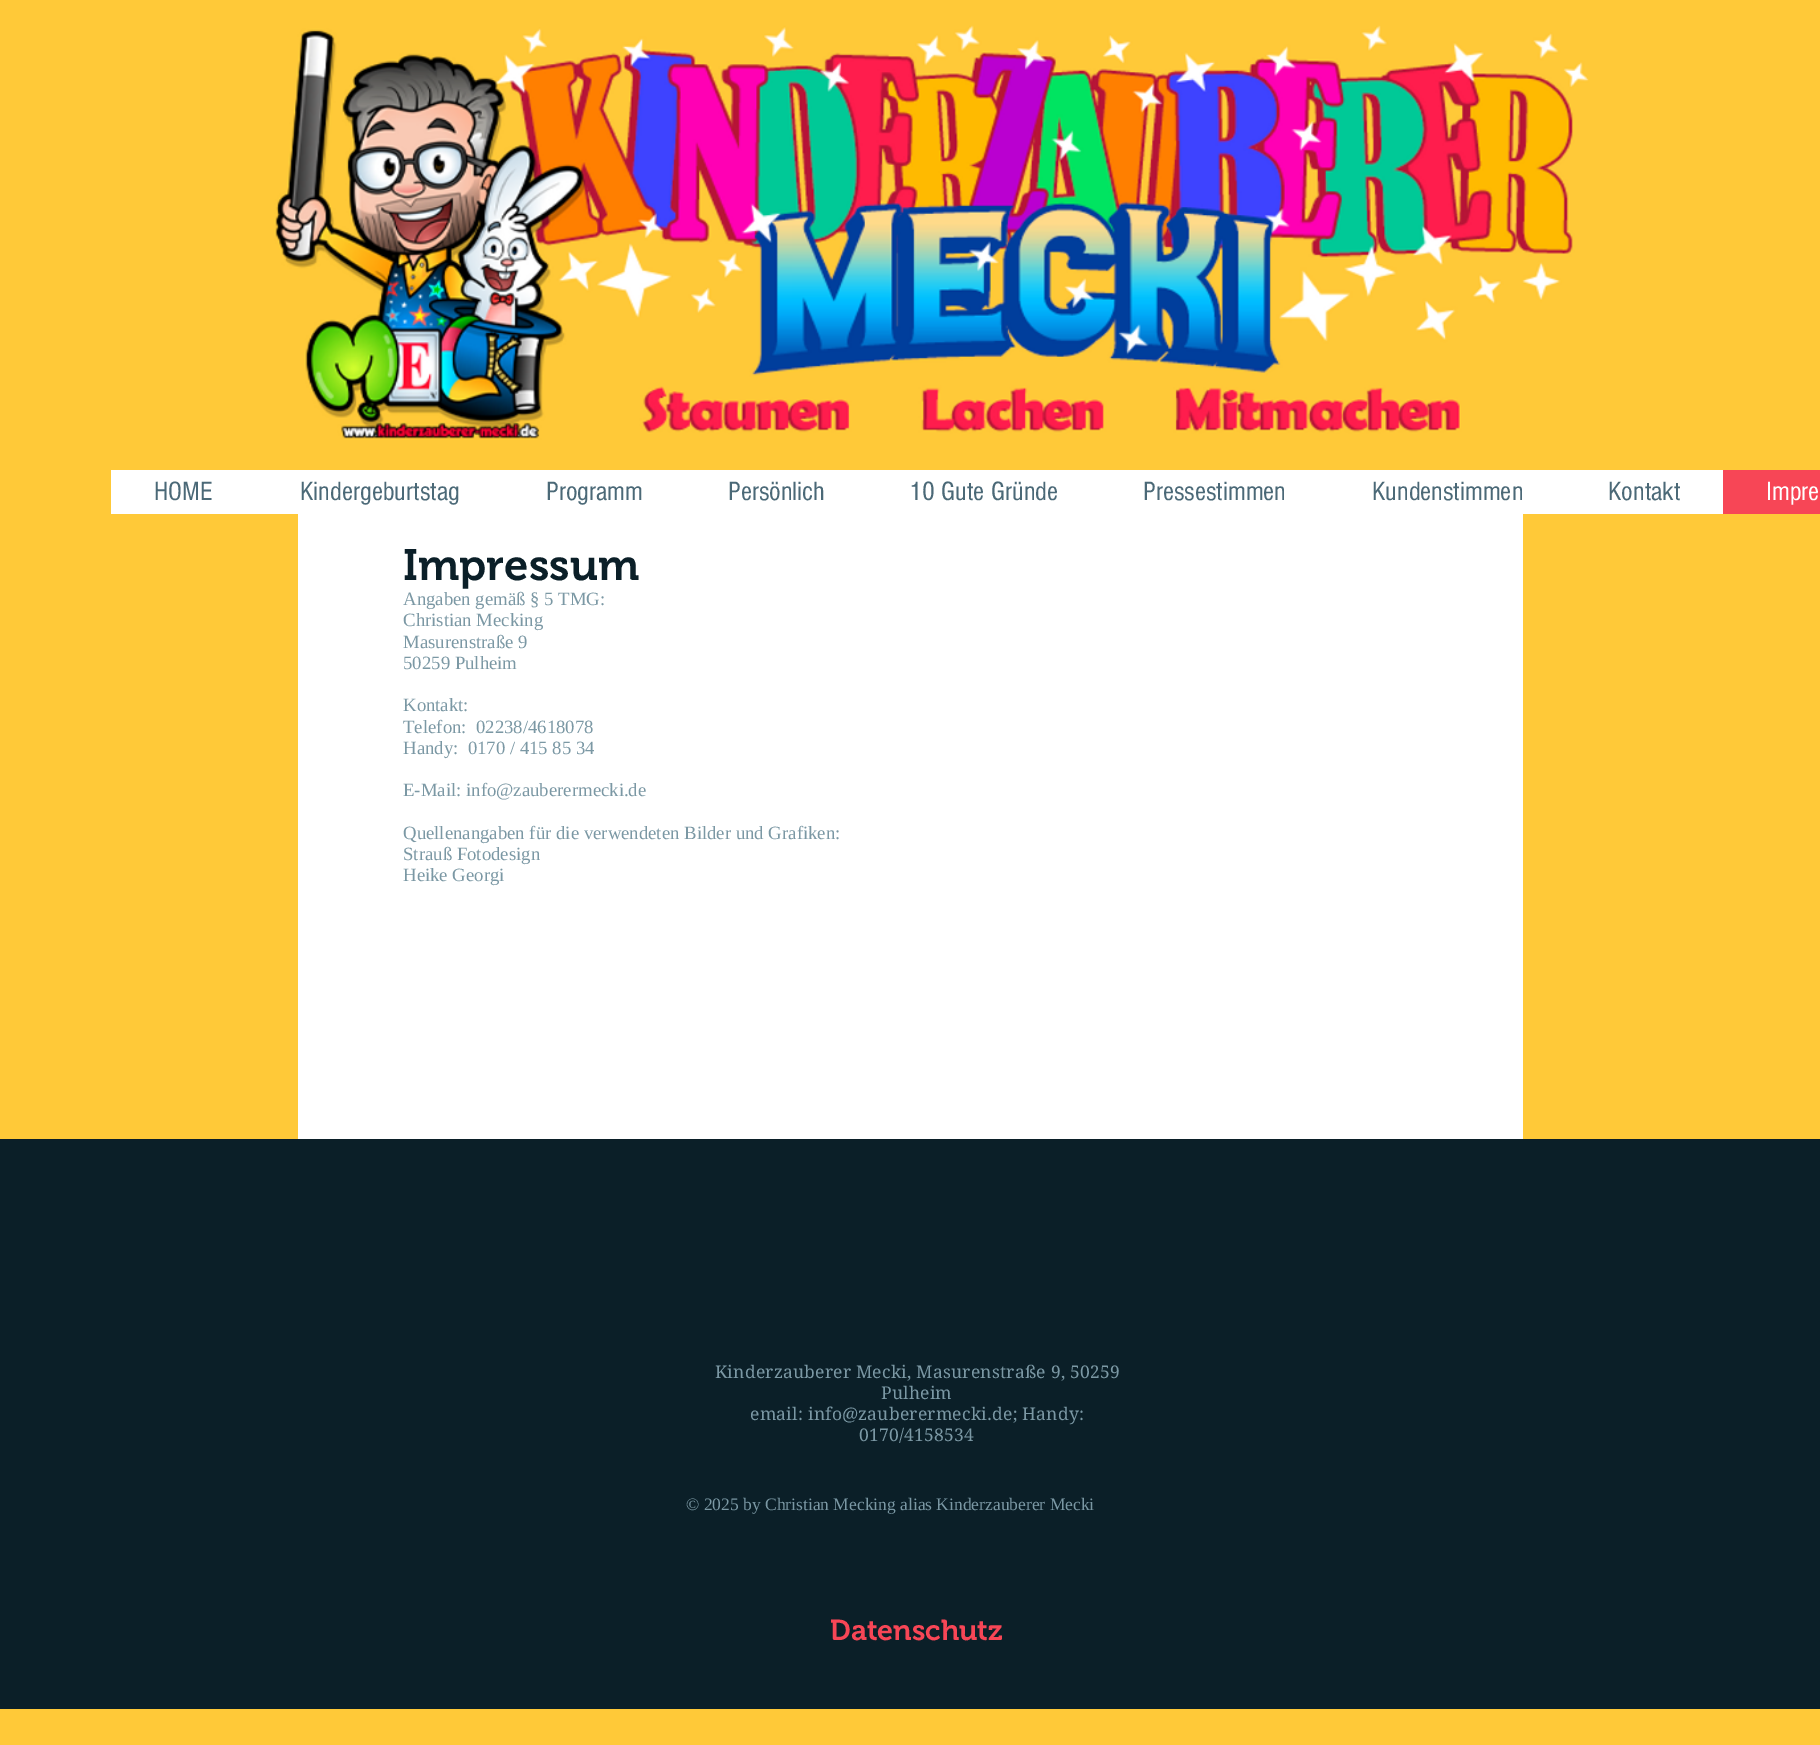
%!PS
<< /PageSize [1820 1745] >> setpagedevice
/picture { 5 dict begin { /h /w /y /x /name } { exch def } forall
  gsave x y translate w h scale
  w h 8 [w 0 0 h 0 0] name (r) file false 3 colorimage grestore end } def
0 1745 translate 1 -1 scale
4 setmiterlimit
1 0.788 0.22 setrgbcolor
0 0 1820 1745 rectfill
(img1.rgb) 274 25 1315 415 picture
1 setgray
111 470 1612 44 rectfill
/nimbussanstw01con-Regular [27.5 0 0 -27.5 0 0] selectfont
0.294 0.412 0.467 setrgbcolor
154 500 moveto (HOME) show
300 500 moveto (Kindergeburtstag) show
546 500 moveto (Programm) show
728 500 moveto (Persönlich) show
909 500 moveto (10 Gute Gründe) show
1143 500 moveto (Pressestimmen) show
1372 500 moveto (Kundenstimmen) show
1608 500 moveto (Kontakt) show
0.969 0.275 0.337 setrgbcolor
1723 470 97 44 rectfill
1 setgray
1766 500 moveto (Impre) show
298 514 1225 625 rectfill
/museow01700-SemiBold [43.75 0 0 -43.75 0 0] selectfont
0.043 0.122 0.157 setrgbcolor
403 580 moveto (Impressum) show
/LiberationSerif-Regular [18.75 0 0 -18.75 0 0] selectfont
0.482 0.596 0.643 setrgbcolor
403 605 moveto (Angaben gemäß § 5 TMG:) show
403 626 moveto (Christian Mecking) show
403 648 moveto (Masurenstraße 9) show
403 669 moveto (50259 Pulheim) show
403 711 moveto (Kontakt:) show
403 733 moveto (Telefon:  02238/4618078) show
403 754 moveto (Handy:  0170 / 415 85 34) show
403 796 moveto (E-Mail: info@zauberermecki.de) show
403 839 moveto (Quellenangaben für die verwendeten Bilder und Grafiken:) show
403 860 moveto (Strauß Fotodesign) show
403 881 moveto (Heike Georgi) show
0.043 0.122 0.157 setrgbcolor
0 1139 1820 570 rectfill
/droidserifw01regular-Regular [17.5 0 0 -17.5 0 0] selectfont
0.482 0.596 0.643 setrgbcolor
715 1378 moveto 0.2 0 (Kinderzauberer Mecki, Masurenstraße 9, 50259) ashow
881 1399 moveto 0.2 0 (Pulheim) ashow
750 1420 moveto 0.2 0 (email: info@zauberermecki.de; Handy:) ashow
859 1441 moveto 0.2 0 (0170/4158534) ashow
/LiberationSerif-Regular [17.5 0 0 -17.5 0 0] selectfont
686 1510 moveto (© 2025 by Christian Mecking alias Kinderzauberer Mecki) show
/museow01700-SemiBold [28.75 0 0 -28.75 0 0] selectfont
0.969 0.275 0.337 setrgbcolor
830 1640 moveto (Datenschutz) show
showpage
